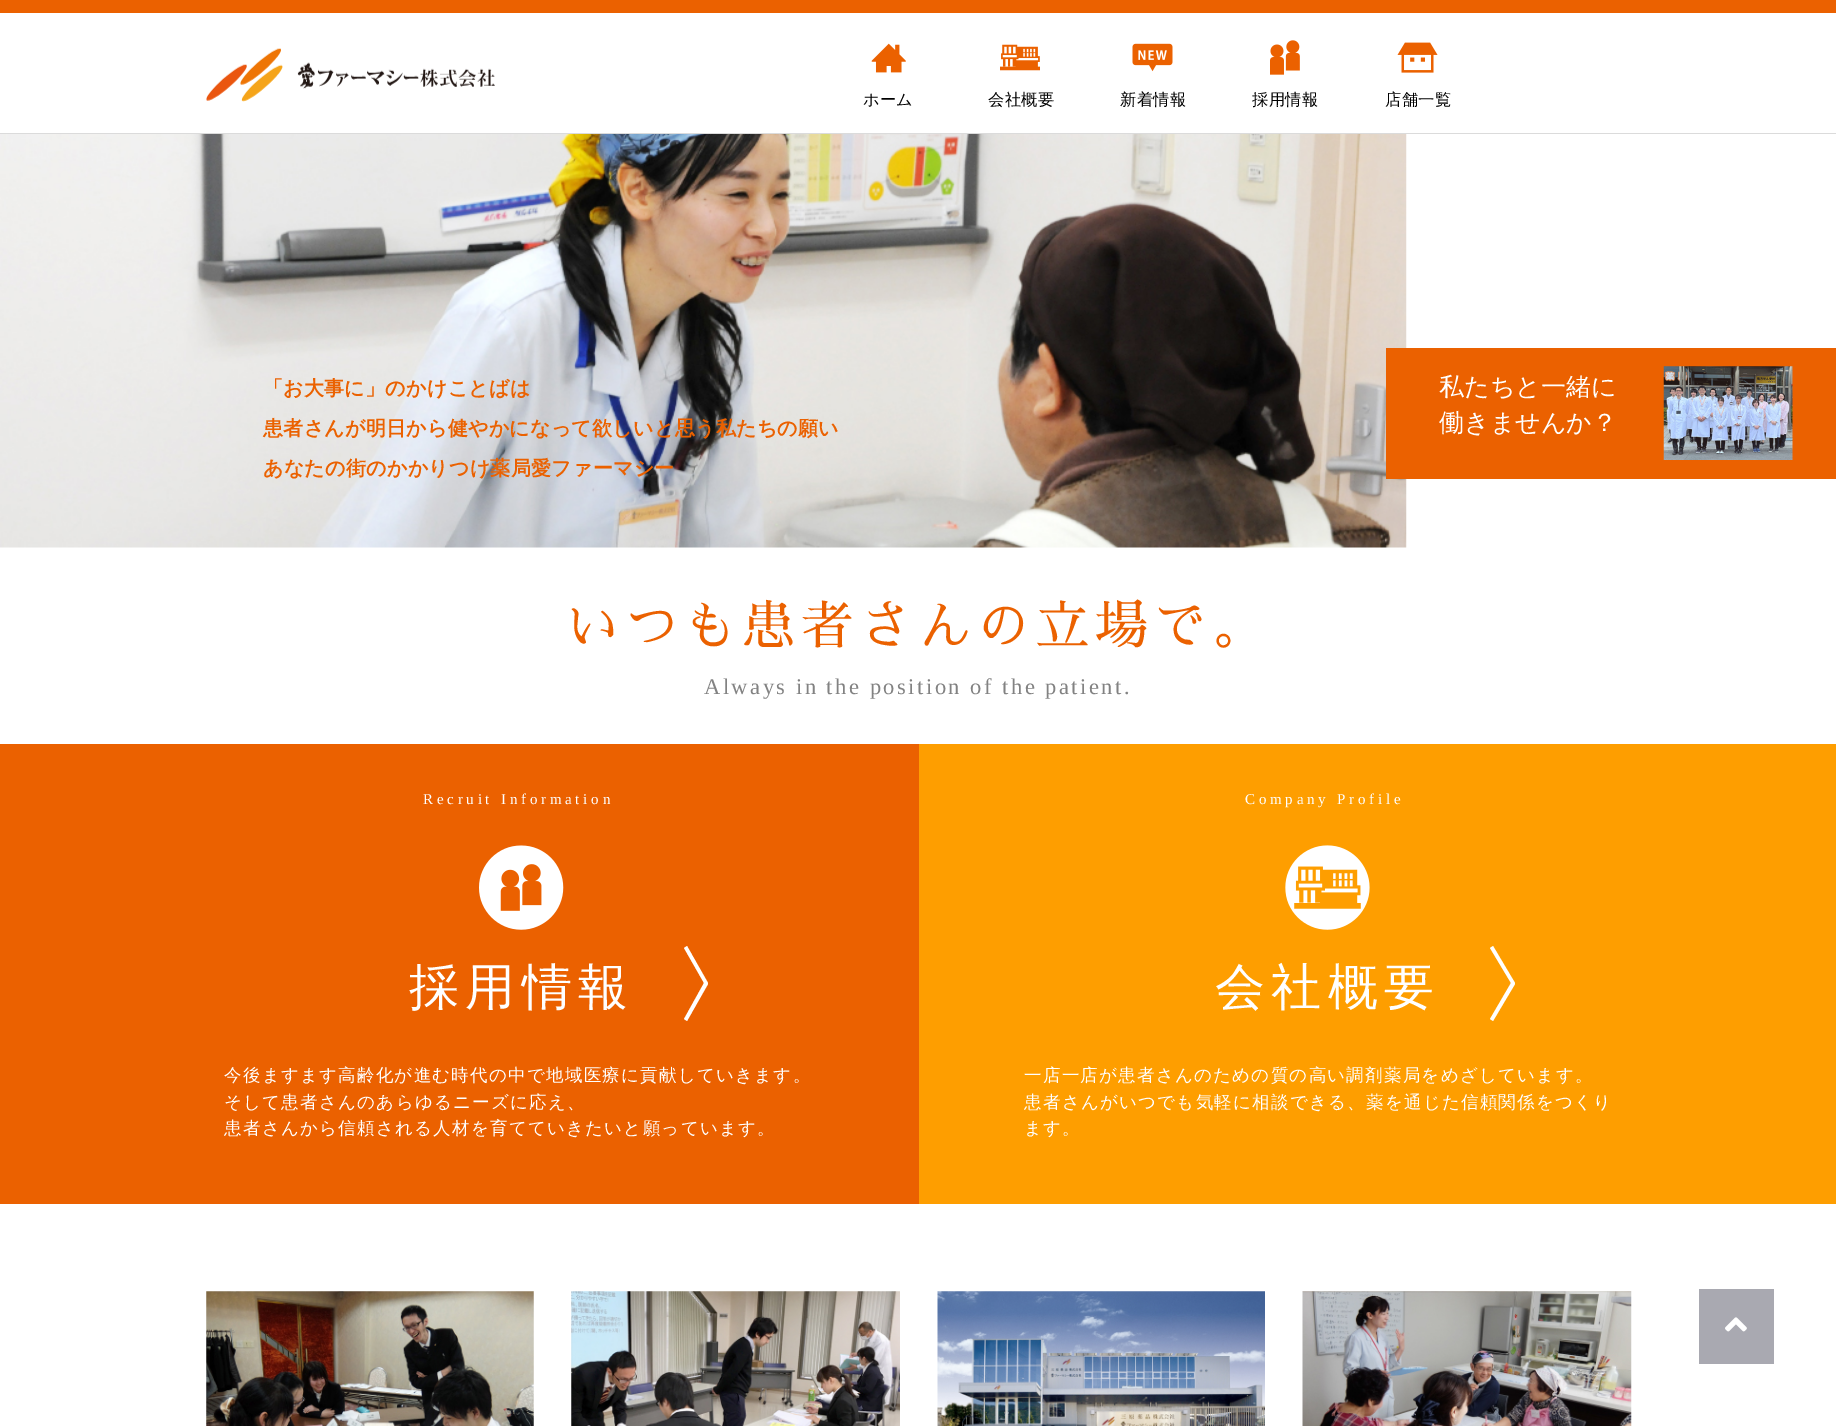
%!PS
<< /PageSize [1836 1426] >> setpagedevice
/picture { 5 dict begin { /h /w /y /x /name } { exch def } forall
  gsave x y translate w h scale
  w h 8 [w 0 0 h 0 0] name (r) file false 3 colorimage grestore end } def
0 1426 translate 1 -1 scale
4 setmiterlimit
1 setgray
0 0 1836 1426 rectfill
0.922 0.38 0 setrgbcolor
0 0 1836 13 rectfill
0.859 setgray
0 133 1836 1 rectfill
(img1.rgb) 206 48 289 54 picture
(img2.rgb) 871 43 35 30 picture
/WenQuanYiZenHei-Medium [16.25 0 0 -16.25 0 0] selectfont
0 setgray
863 105 moveto 0.25 0 (ホーム) ashow
(img3.rgb) 1000 44 40 27 picture
988 105 moveto 0.25 0 (会社概要) ashow
(img4.rgb) 1132 43 41 29 picture
1120 105 moveto 0.25 0 (新着情報) ashow
(img5.rgb) 1270 40 30 35 picture
1252 105 moveto 0.25 0 (採用情報) ashow
(img6.rgb) 1397 42 41 31 picture
1385 105 moveto 0.25 0 (店舗一覧) ashow
(img7.rgb) 0 134 1407 414 picture
/WenQuanYiZenHei-Bold [20 0 0 -20 0 0] selectfont
0.922 0.38 0 setrgbcolor
263 395 moveto 0.25 0 (「お大事に」のかけことばは) ashow
263 435 moveto 0.25 0 (患者さんが明日から健やかになって欲しいと思う私たちの願い) ashow
263 475 moveto 0.25 0 (あなたの街のかかりつけ薬局愛ファーマシー) ashow
1386 348 450 131 rectfill
/WenQuanYiZenHei-Medium [25 0 0 -25 0 0] selectfont
1 setgray
1439 395 moveto (私たちと一緒に) show
1439 431 moveto (働きませんか？) show
(img8.rgb) 1663 366 130 94 picture
/SawarabiMincho-Regular [52.5 0 0 -52.5 0 0] selectfont
0.922 0.38 0 setrgbcolor
566 644 moveto 6.25 0 (いつも患者さんの立場で。) ashow
/LiberationSerif-Regular [22.5 0 0 -22.5 0 0] selectfont
0.51 setgray
704 694 moveto 2.5 0 (Always in the position of the patient.) ashow
0.922 0.38 0 setrgbcolor
0 744 919 460 rectfill
/LiberationSerif-Regular [15 0 0 -15 0 0] selectfont
1 setgray
423 804 moveto 3.75 0 (Recruit Information) ashow
(img9.rgb) 479 845 85 85 picture
/WenQuanYiZenHei-Medium [50 0 0 -50 0 0] selectfont
409 1004 moveto 6.25 0 (採用情報) ashow
newpath 687 1021 moveto 684 1019 lineto 704 983 lineto 684 948 lineto 687 946 lineto 708 983 lineto 708 984 lineto closepath fill
/WenQuanYiZenHei-Medium [17.5 0 0 -17.5 0 0] selectfont
224 1081 moveto 1.25 0 (今後ますます高齢化が進む時代の中で地域医療に貢献していきます。) ashow
224 1108 moveto 1.25 0 (そして患者さんのあらゆるニーズに応え、) ashow
224 1134 moveto 1.25 0 (患者さんから信頼される人材を育てていきたいと願っています。) ashow
0.996 0.62 0 setrgbcolor
919 744 917 460 rectfill
/LiberationSerif-Regular [15 0 0 -15 0 0] selectfont
1 setgray
1245 804 moveto 3.75 0 (Company Profile) ashow
(img10.rgb) 1285 845 85 85 picture
/WenQuanYiZenHei-Medium [50 0 0 -50 0 0] selectfont
1215 1004 moveto 6.25 0 (会社概要) ashow
newpath 1493 1021 moveto 1490 1019 lineto 1511 983 lineto 1490 948 lineto 1493 946 lineto 1515 983 lineto 1515 984 lineto closepath fill
/WenQuanYiZenHei-Medium [17.5 0 0 -17.5 0 0] selectfont
1024 1081 moveto 1.25 0 (一店一店が患者さんのための質の高い調剤薬局をめざしています。) ashow
1024 1108 moveto 1.25 0 (患者さんがいつでも気軽に相談できる、薬を通じた信頼関係をつくり) ashow
1024 1134 moveto 1.25 0 (ます。) ashow
(img11.rgb) 206 1291 328 135 picture
(img12.rgb) 571 1291 329 135 picture
(img13.rgb) 937 1291 328 135 picture
(img14.rgb) 1302 1291 330 135 picture
0.663 0.663 0.694 setrgbcolor
1699 1289 75 75 rectfill
(img15.rgb) 1725 1317 22 15 picture
showpage
